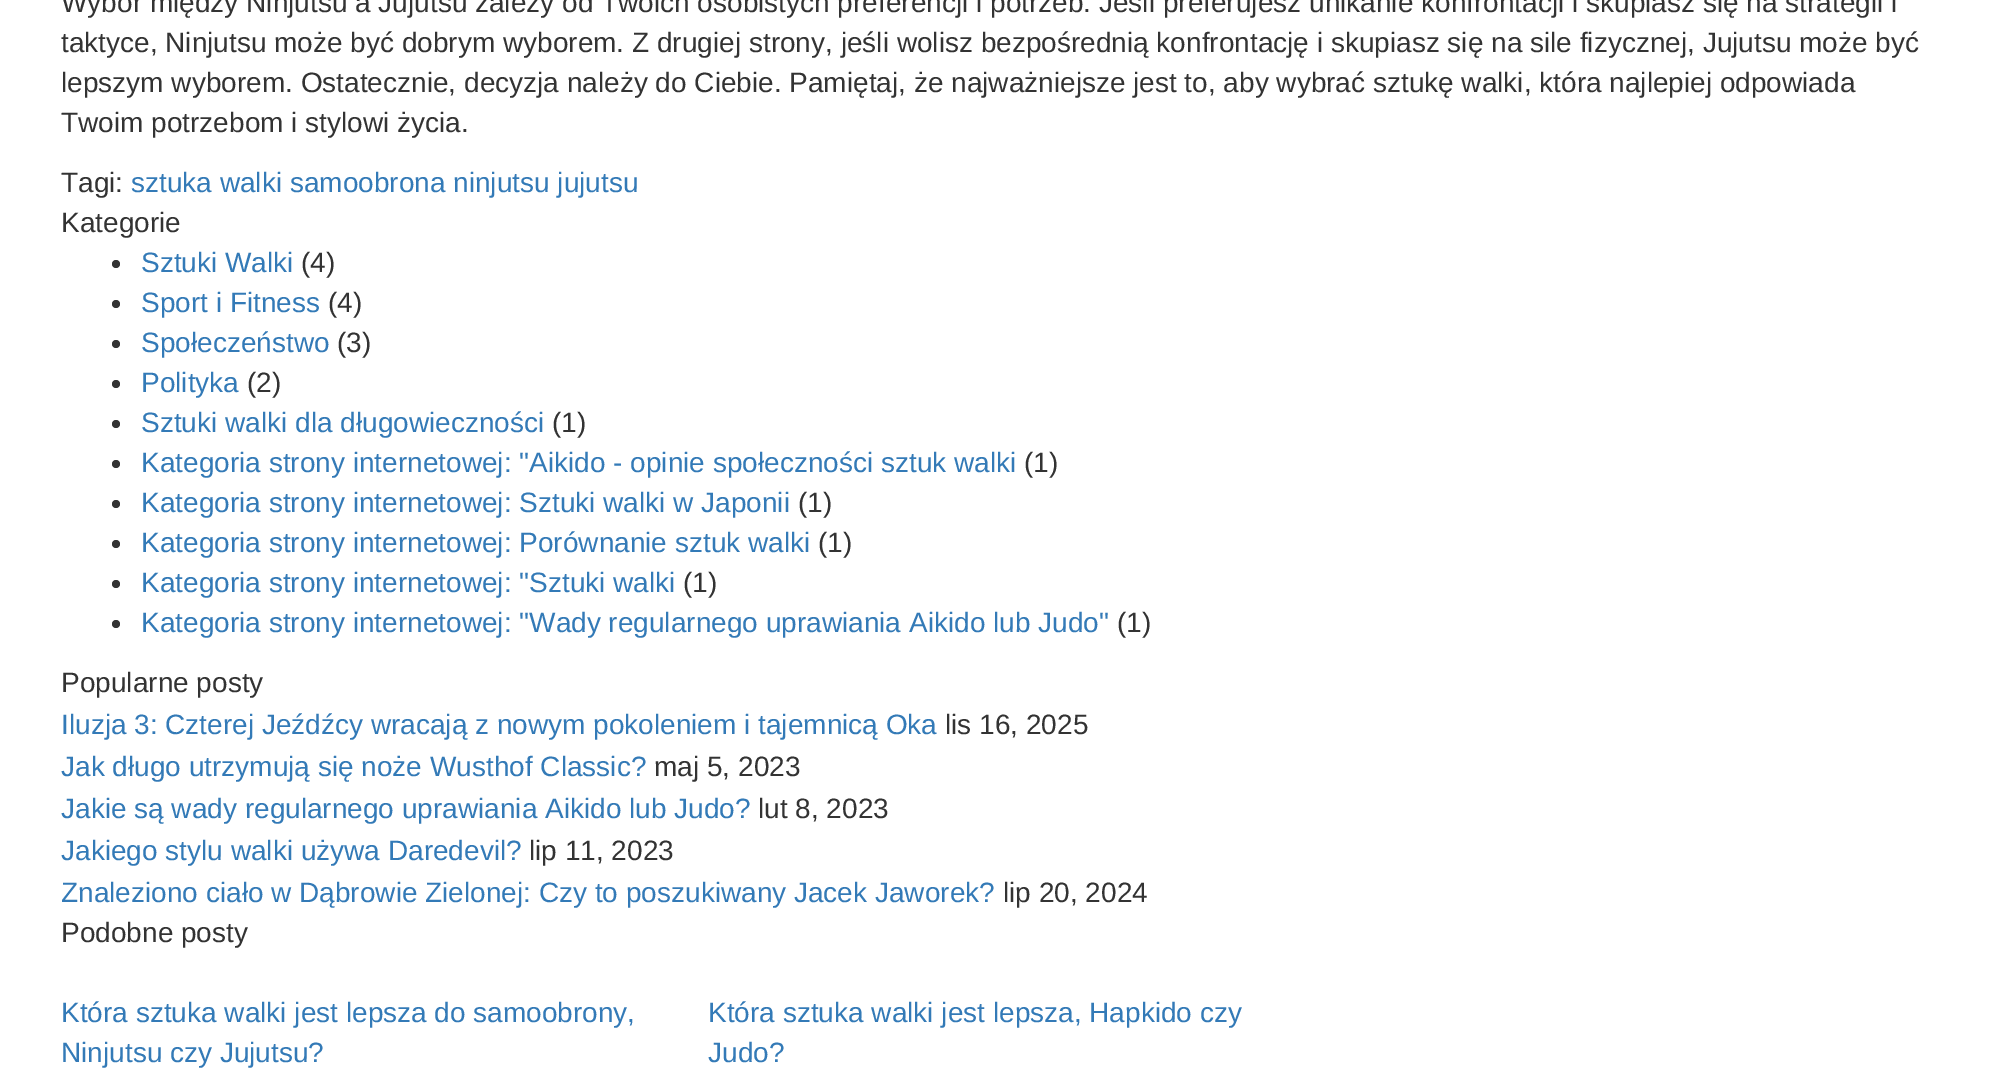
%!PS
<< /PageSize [2002 1071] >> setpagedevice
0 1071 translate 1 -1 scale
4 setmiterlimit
1 setgray
0 0 2002 1071 rectfill
/LiberationSans-Regular [28 0 0 -28 0 0] selectfont
0.2 setgray
61 12 moveto (Wybór między Ninjutsu a Jujutsu zależy od Twoich osobistych preferencji i potrzeb. Jeśli preferujesz unikanie konfrontacji i skupiasz się na strategii i) show
61 52 moveto (taktyce, Ninjutsu może być dobrym wyborem. Z drugiej strony, jeśli wolisz bezpośrednią konfrontację i skupiasz się na sile fizycznej, Jujutsu może być) show
61 92 moveto (lepszym wyborem. Ostatecznie, decyzja należy do Ciebie. Pamiętaj, że najważniejsze jest to, aby wybrać sztukę walki, która najlepiej odpowiada) show
61 132 moveto (Twoim potrzebom i stylowi życia.) show
61 192 moveto (Tagi:) show
0.2 0.478 0.718 setrgbcolor
131 192 moveto (sztuka walki samoobrona ninjutsu jujutsu) show
0.2 setgray
61 232 moveto (Kategorie) show
newpath 116 264 4 0 360 arc closepath fill
0.2 0.478 0.718 setrgbcolor
141 272 moveto (Sztuki Walki) show
0.2 setgray
301 272 moveto (\(4\)) show
newpath 116 304 4 0 360 arc closepath fill
0.2 0.478 0.718 setrgbcolor
141 312 moveto (Sport i Fitness) show
0.2 setgray
328 312 moveto (\(4\)) show
newpath 116 344 4 0 360 arc closepath fill
0.2 0.478 0.718 setrgbcolor
141 352 moveto (Społeczeństwo) show
0.2 setgray
337 352 moveto (\(3\)) show
newpath 116 384 4 0 360 arc closepath fill
0.2 0.478 0.718 setrgbcolor
141 392 moveto (Polityka) show
0.2 setgray
247 392 moveto (\(2\)) show
newpath 116 424 4 0 360 arc closepath fill
0.2 0.478 0.718 setrgbcolor
141 432 moveto (Sztuki walki dla długowieczności) show
0.2 setgray
552 432 moveto (\(1\)) show
newpath 116 464 4 0 360 arc closepath fill
0.2 0.478 0.718 setrgbcolor
141 472 moveto (Kategoria strony internetowej: "Aikido - opinie społeczności sztuk walki) show
0.2 setgray
1024 472 moveto (\(1\)) show
newpath 116 504 4 0 360 arc closepath fill
0.2 0.478 0.718 setrgbcolor
141 512 moveto (Kategoria strony internetowej: Sztuki walki w Japonii) show
0.2 setgray
798 512 moveto (\(1\)) show
newpath 116 544 4 0 360 arc closepath fill
0.2 0.478 0.718 setrgbcolor
141 552 moveto (Kategoria strony internetowej: Porównanie sztuk walki) show
0.2 setgray
818 552 moveto (\(1\)) show
newpath 116 584 4 0 360 arc closepath fill
0.2 0.478 0.718 setrgbcolor
141 592 moveto (Kategoria strony internetowej: "Sztuki walki) show
0.2 setgray
683 592 moveto (\(1\)) show
newpath 116 624 4 0 360 arc closepath fill
0.2 0.478 0.718 setrgbcolor
141 632 moveto (Kategoria strony internetowej: "Wady regularnego uprawiania Aikido lub Judo") show
0.2 setgray
1117 632 moveto (\(1\)) show
61 692 moveto (Popularne posty) show
0.2 0.478 0.718 setrgbcolor
61 734 moveto (Iluzja 3: Czterej Jeźdźcy wracają z nowym pokoleniem i tajemnicą Oka) show
0.2 setgray
945 734 moveto (lis 16, 2025) show
0.2 0.478 0.718 setrgbcolor
61 776 moveto (Jak długo utrzymują się noże Wusthof Classic?) show
0.2 setgray
654 776 moveto (maj 5, 2023) show
0.2 0.478 0.718 setrgbcolor
61 818 moveto (Jakie są wady regularnego uprawiania Aikido lub Judo?) show
0.2 setgray
758 818 moveto (lut 8, 2023) show
0.2 0.478 0.718 setrgbcolor
61 860 moveto (Jakiego stylu walki używa Daredevil?) show
0.2 setgray
529 860 moveto (lip 11, 2023) show
0.2 0.478 0.718 setrgbcolor
61 902 moveto (Znaleziono ciało w Dąbrowie Zielonej: Czy to poszukiwany Jacek Jaworek?) show
0.2 setgray
1003 902 moveto (lip 20, 2024) show
61 942 moveto (Podobne posty) show
0.2 0.478 0.718 setrgbcolor
61 1022 moveto (Która sztuka walki jest lepsza do samoobrony,) show
61 1062 moveto (Ninjutsu czy Jujutsu?) show
708 1022 moveto (Która sztuka walki jest lepsza, Hapkido czy) show
708 1062 moveto (Judo?) show
showpage
